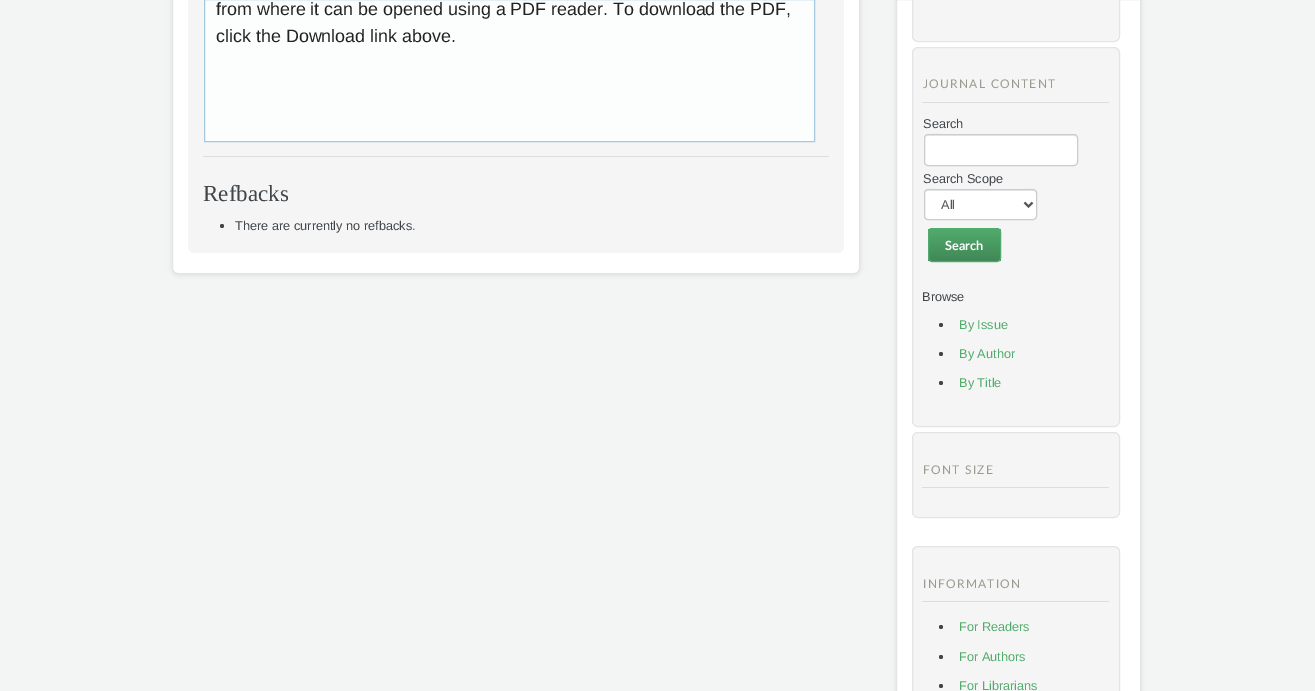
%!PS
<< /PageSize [1315 691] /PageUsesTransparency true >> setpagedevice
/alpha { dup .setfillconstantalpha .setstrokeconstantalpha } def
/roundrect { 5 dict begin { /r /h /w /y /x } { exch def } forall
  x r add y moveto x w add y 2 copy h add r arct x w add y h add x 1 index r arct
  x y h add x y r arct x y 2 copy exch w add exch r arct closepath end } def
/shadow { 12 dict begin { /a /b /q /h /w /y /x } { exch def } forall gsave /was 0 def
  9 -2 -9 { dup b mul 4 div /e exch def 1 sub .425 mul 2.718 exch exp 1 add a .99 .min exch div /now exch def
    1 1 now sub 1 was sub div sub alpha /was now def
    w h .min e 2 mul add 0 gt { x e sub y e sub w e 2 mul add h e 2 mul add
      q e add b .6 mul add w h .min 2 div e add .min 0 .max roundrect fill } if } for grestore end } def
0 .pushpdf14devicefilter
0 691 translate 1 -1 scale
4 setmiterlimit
0.953 0.957 0.957 setrgbcolor
0 0 1315 691 rectfill
0.863 0.867 0.867 setrgbcolor
172 -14 688 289 6 2.5 1 shadow
1 setgray
172.5 -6.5 687 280 5.5 roundrect gsave fill grestore
0.894 setgray
stroke
0.961 setgray
188 -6 656 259 6 roundrect fill
0.988 0.992 0.992 setrgbcolor
newpath 204.5 -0.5 moveto 814.5 -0.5 lineto 814.5 141.5 lineto 204.5 141.5 lineto closepath gsave fill grestore
0.651 0.788 0.886 setrgbcolor
stroke
/LiberationSans-Regular [17.9 0 0 -17.9 0 0] selectfont
0.133 setgray
216 15 moveto (from where it can be opened using a PDF reader. To download the PDF,) show
216 42 moveto (click the Download link above.) show
0.867 setgray
203 156 626 1 rectfill
/LiberationSerif-Regular [23 0 0 -23 0 0] selectfont
0.251 0.271 0.29 setrgbcolor
203 201 moveto (Refbacks) show
newpath 222 226 2 0 360 arc closepath fill
/LiberationSans-Regular [12.75 0 0 -12.75 0 0] selectfont
235 230 moveto (There are currently no refbacks.) show
0.863 0.867 0.867 setrgbcolor
896 -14 245 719 6 2.5 1 shadow
1 setgray
newpath 896.5 -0.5 moveto 1140.5 -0.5 lineto 1140.5 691.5 lineto 896.5 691.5 lineto closepath gsave fill grestore
0.894 setgray
stroke
0.961 setgray
912.5 -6.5 207 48 5.5 roundrect gsave fill grestore
0.894 setgray
stroke
0.961 setgray
912.5 47.5 207 379 5.5 roundrect gsave fill grestore
0.894 setgray
stroke
0.863 0.867 0.867 setrgbcolor
922 102 187 1 rectfill
/Lato-Regular [12 0 0 -12 0 0] selectfont
0.604 0.604 0.565 setrgbcolor
923 88 moveto 1.25 0 (JOURNAL CONTENT) ashow
/LiberationSans-Regular [12.75 0 0 -12.75 0 0] selectfont
0.251 0.271 0.29 setrgbcolor
923 128 moveto (Search) show
1 setgray
924 134 154 32 4 roundrect fill
0.925 setgray
newpath 928 136 moveto 1074 136 lineto 1076 136 1077 137 1077 139 curveto 1077 137 1077 136 1075 135 curveto 952 135 lineto 945 135 925 130 925 139 curveto 925 137 926 136 928 136 curveto closepath fill
0.8 setgray
924.5 134.5 153 31 3.5 roundrect stroke
0.251 0.271 0.29 setrgbcolor
923 183 moveto (Search Scope) show
1 setgray
924 189 113 31 4 roundrect fill
0.925 setgray
newpath 928 191 moveto 1033 191 lineto 1035 191 1036 192 1036 194 curveto 1036 185 1018 190 1016 190 curveto 946 190 lineto 943 190 925 185 925 194 curveto 925 192 926 191 928 191 curveto closepath fill
0.8 setgray
924.5 189.5 112 30 3.5 roundrect stroke
0.333 setgray
2 setlinewidth
newpath 1024.5 202.5 moveto 1028.5 206.5 lineto 1032.5 202.5 lineto stroke
941 209 moveto (All) show
gsave
928 228 73 34 4 roundrect clip newpath
gsave newpath 928 229 moveto 1001 229 lineto 1001 261 lineto 928 261 lineto closepath clip newpath
<< /ShadingType 2 /ColorSpace /DeviceRGB /Coords [965 229 965 261] /Extend [true true] /Function << /FunctionType 2 /Domain [0 1] /C0 [0.318 0.671 0.427] /C1 [0.255 0.533 0.341] /N 1 >> >> shfill grestore
grestore
0.318 0.671 0.427 setrgbcolor
1 setlinewidth
928.5 228.5 72 33 3.5 roundrect stroke
/Lato-Bold [12.75 0 0 -12.75 0 0] selectfont
1 setgray
945 250 moveto (Search) show
/LiberationSans-Regular [12.75 0 0 -12.75 0 0] selectfont
0.251 0.271 0.29 setrgbcolor
922 301 moveto (Browse) show
newpath 941 325 2 0 360 arc closepath fill
0.318 0.671 0.427 setrgbcolor
959 329 moveto (By Issue) show
0.251 0.271 0.29 setrgbcolor
newpath 941 354 2 0 360 arc closepath fill
0.318 0.671 0.427 setrgbcolor
959 358 moveto (By Author) show
0.251 0.271 0.29 setrgbcolor
newpath 941 383 2 0 360 arc closepath fill
0.318 0.671 0.427 setrgbcolor
959 387 moveto (By Title) show
0.961 setgray
912.5 432.5 207 85 5.5 roundrect gsave fill grestore
0.894 setgray
stroke
0.863 0.867 0.867 setrgbcolor
922 487 187 1 rectfill
/Lato-Regular [12 0 0 -12 0 0] selectfont
0.604 0.604 0.565 setrgbcolor
923 474 moveto 1.25 0 (FONT SIZE) ashow
0.961 setgray
912.5 546.5 207 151 5.5 roundrect gsave fill grestore
0.894 setgray
stroke
0.863 0.867 0.867 setrgbcolor
922 601 187 1 rectfill
0.604 0.604 0.565 setrgbcolor
923 588 moveto 1.25 0 (INFORMATION) ashow
0.251 0.271 0.29 setrgbcolor
newpath 941 627 2 0 360 arc closepath fill
/LiberationSans-Regular [12.75 0 0 -12.75 0 0] selectfont
0.318 0.671 0.427 setrgbcolor
959 631 moveto (For Readers) show
0.251 0.271 0.29 setrgbcolor
newpath 941 657 2 0 360 arc closepath fill
0.318 0.671 0.427 setrgbcolor
959 661 moveto (For Authors) show
0.251 0.271 0.29 setrgbcolor
newpath 941 686 2 0 360 arc closepath fill
0.318 0.671 0.427 setrgbcolor
959 690 moveto (For Librarians) show
.poppdf14devicefilter showpage
